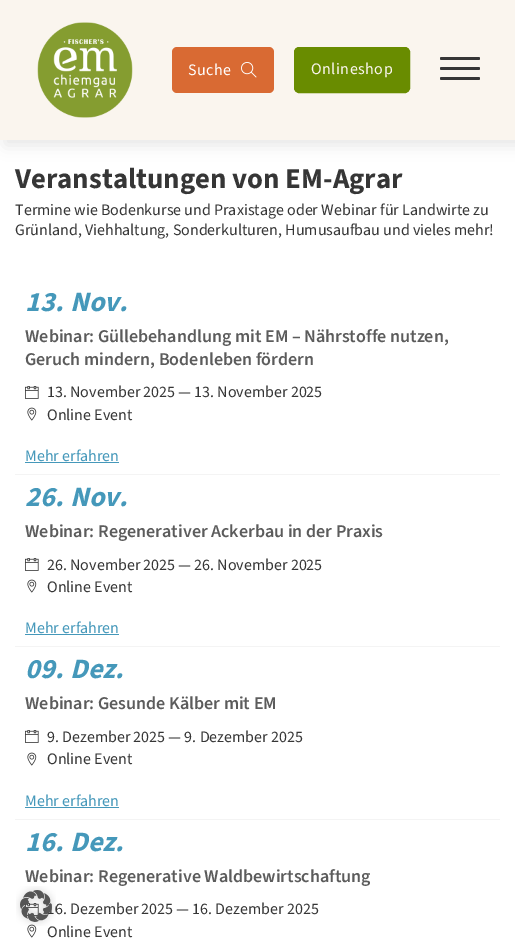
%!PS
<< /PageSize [515 942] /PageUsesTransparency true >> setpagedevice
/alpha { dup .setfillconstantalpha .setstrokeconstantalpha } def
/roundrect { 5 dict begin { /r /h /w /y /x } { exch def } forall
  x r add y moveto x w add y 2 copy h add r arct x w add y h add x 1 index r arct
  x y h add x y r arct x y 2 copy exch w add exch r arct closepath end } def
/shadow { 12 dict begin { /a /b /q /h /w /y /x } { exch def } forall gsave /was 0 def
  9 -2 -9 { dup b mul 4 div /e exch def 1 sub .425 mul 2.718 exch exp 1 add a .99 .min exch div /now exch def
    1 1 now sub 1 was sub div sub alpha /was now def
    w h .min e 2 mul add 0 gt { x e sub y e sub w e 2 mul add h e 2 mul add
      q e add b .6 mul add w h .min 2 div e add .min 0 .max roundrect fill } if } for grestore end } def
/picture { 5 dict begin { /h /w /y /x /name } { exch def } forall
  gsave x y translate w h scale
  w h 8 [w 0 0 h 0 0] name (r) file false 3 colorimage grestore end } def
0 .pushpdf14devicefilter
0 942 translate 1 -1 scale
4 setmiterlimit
1 setgray
0 0 515 942 rectfill
0 setgray
5 5 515 140 0 7.5 0.1 shadow
0.98 0.961 0.933 setrgbcolor
0 0 515 140 rectfill
(img1.rgb) 37 22 96 96 picture
0.851 0.416 0.2 setrgbcolor
172 47 102 46 5 roundrect fill
/SourceSans3-Regular [16 0 0 -16 0 0] selectfont
1 setgray
188 75 moveto 0.5 0 (Suche) ashow
(img2.rgb) 241 62 16 16 picture
0.412 0.549 0 setrgbcolor
294.5 47.5 115 45 4.5 roundrect gsave fill grestore
stroke
0.98 0.961 0.933 setrgbcolor
311 74 moveto 0.5 0 (Onlineshop) ashow
0.212 setgray
440 67 40 3 1.5 roundrect fill
440 57 40 3 1.5 roundrect fill
440 77 40 3 1.5 roundrect fill
/SourceSans3-Bold [28.75 0 0 -28.75 0 0] selectfont
15 188 moveto (Veranstaltungen von EM-Agrar) show
/SourceSans3-Regular [16 0 0 -16 0 0] selectfont
15 215 moveto (Termine wie Bodenkurse und Praxistage oder Webinar für Landwirte zu) show
15 235 moveto (Grünland, Viehhaltung, Sonderkulturen, Humusaufbau und vieles mehr!) show
0.957 setgray
15 474 485 1 rectfill
/SourceSans3-BoldItalic [28 0 0 -28 0 0] selectfont
0.271 0.596 0.729 setrgbcolor
25 311 moveto (13.) show
70 311 moveto (Nov.) show
/SourceSans3-SemiBold [18 0 0 -18 0 0] selectfont
0.361 setgray
25 342 moveto (Webinar: Güllebehandlung mit EM – Nährstoffe nutzen,) show
25 365 moveto (Geruch mindern, Bodenleben fördern) show
(img3.rgb) 25 386 14 13 picture
/SourceSans3-Regular [16 0 0 -16 0 0] selectfont
0.212 setgray
47 397 moveto (13. November 2025 — 13. November 2025) show
(img4.rgb) 27 407 10 14 picture
47 420 moveto (Online Event) show
0.271 0.596 0.729 setrgbcolor
25 461 moveto (Mehr erfahren) show
25 462 94 1 rectfill
0.957 setgray
15 646 485 1 rectfill
/SourceSans3-BoldItalic [28 0 0 -28 0 0] selectfont
0.271 0.596 0.729 setrgbcolor
25 506 moveto (26.) show
70 506 moveto (Nov.) show
/SourceSans3-SemiBold [18 0 0 -18 0 0] selectfont
0.361 setgray
25 537 moveto (Webinar: Regenerativer Ackerbau in der Praxis) show
(img3.rgb) 25 558 14 13 picture
/SourceSans3-Regular [16 0 0 -16 0 0] selectfont
0.212 setgray
47 570 moveto (26. November 2025 — 26. November 2025) show
(img4.rgb) 27 579 10 14 picture
47 592 moveto (Online Event) show
0.271 0.596 0.729 setrgbcolor
25 633 moveto (Mehr erfahren) show
25 634 94 1 rectfill
0.957 setgray
15 819 485 1 rectfill
/SourceSans3-BoldItalic [28 0 0 -28 0 0] selectfont
0.271 0.596 0.729 setrgbcolor
25 678 moveto (09.) show
70 678 moveto (Dez.) show
/SourceSans3-SemiBold [18 0 0 -18 0 0] selectfont
0.361 setgray
25 709 moveto (Webinar: Gesunde Kälber mit EM) show
(img3.rgb) 25 730 14 13 picture
/SourceSans3-Regular [16 0 0 -16 0 0] selectfont
0.212 setgray
47 742 moveto (9. Dezember 2025 — 9. Dezember 2025) show
(img4.rgb) 27 752 10 14 picture
47 764 moveto (Online Event) show
0.271 0.596 0.729 setrgbcolor
25 806 moveto (Mehr erfahren) show
25 807 94 1 rectfill
/SourceSans3-BoldItalic [28 0 0 -28 0 0] selectfont
25 851 moveto (16.) show
70 851 moveto (Dez.) show
/SourceSans3-SemiBold [18 0 0 -18 0 0] selectfont
0.361 setgray
25 882 moveto (Webinar: Regenerative Waldbewirtschaftung) show
(img3.rgb) 25 903 14 13 picture
/SourceSans3-Regular [16 0 0 -16 0 0] selectfont
0.212 setgray
47 914 moveto (16. Dezember 2025 — 16. Dezember 2025) show
(img4.rgb) 27 924 10 14 picture
47 937 moveto (Online Event) show
(img5.rgb) 16 886 40 40 picture
.poppdf14devicefilter showpage
